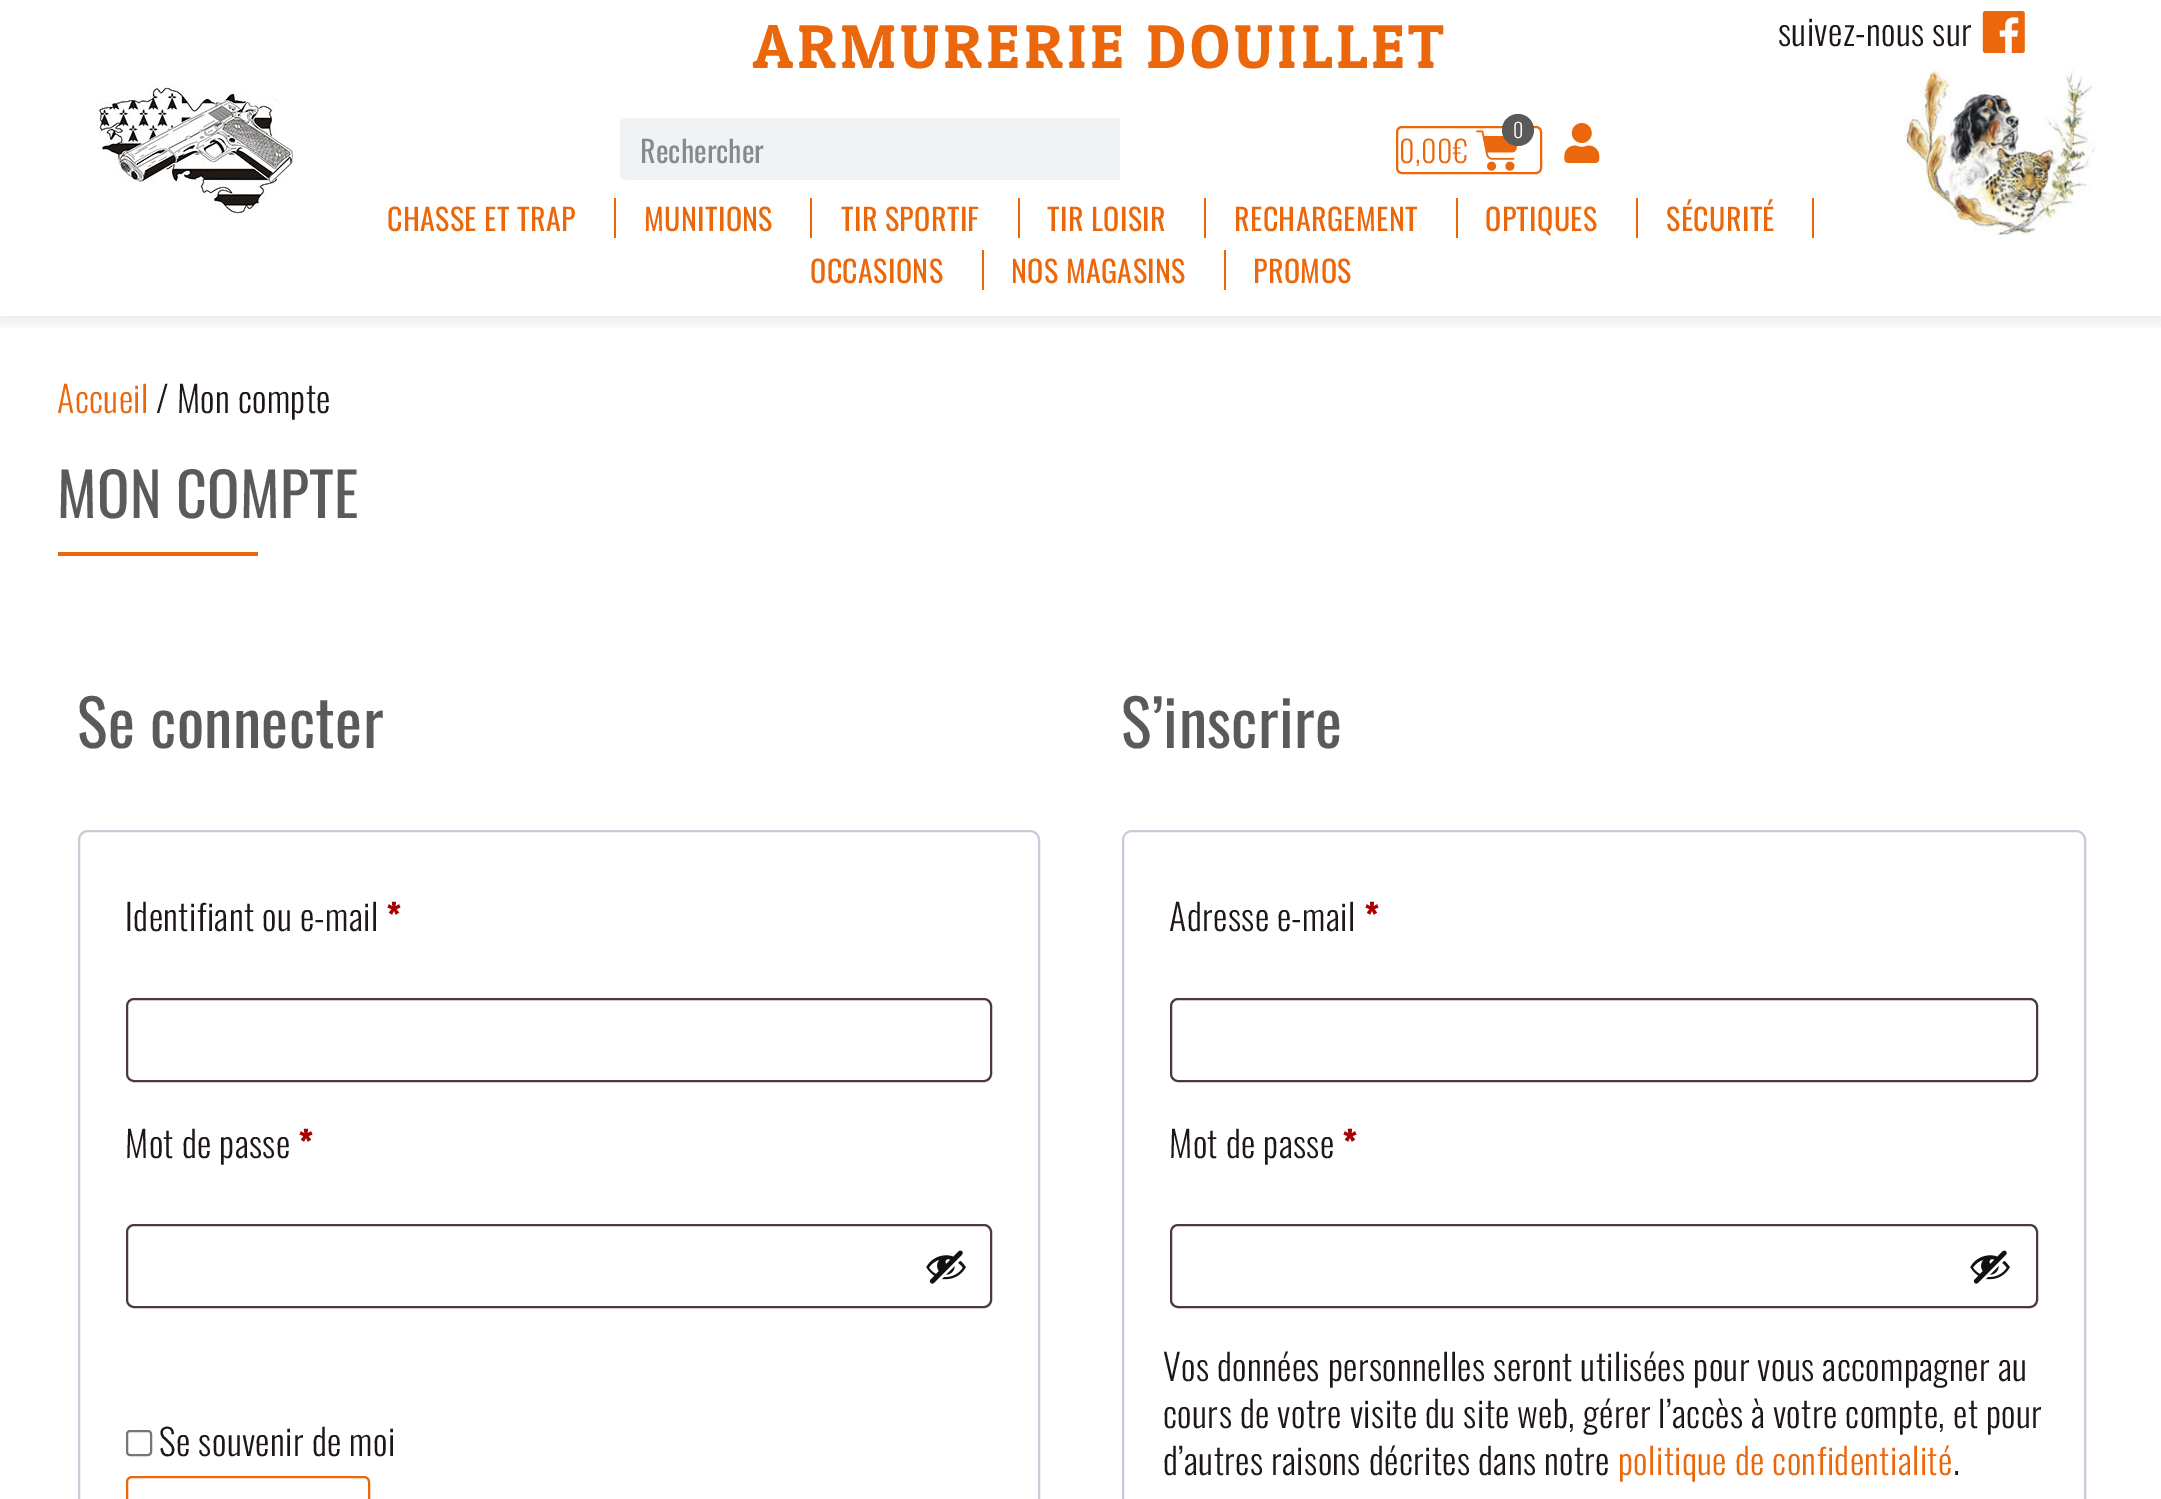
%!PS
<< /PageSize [2161 1499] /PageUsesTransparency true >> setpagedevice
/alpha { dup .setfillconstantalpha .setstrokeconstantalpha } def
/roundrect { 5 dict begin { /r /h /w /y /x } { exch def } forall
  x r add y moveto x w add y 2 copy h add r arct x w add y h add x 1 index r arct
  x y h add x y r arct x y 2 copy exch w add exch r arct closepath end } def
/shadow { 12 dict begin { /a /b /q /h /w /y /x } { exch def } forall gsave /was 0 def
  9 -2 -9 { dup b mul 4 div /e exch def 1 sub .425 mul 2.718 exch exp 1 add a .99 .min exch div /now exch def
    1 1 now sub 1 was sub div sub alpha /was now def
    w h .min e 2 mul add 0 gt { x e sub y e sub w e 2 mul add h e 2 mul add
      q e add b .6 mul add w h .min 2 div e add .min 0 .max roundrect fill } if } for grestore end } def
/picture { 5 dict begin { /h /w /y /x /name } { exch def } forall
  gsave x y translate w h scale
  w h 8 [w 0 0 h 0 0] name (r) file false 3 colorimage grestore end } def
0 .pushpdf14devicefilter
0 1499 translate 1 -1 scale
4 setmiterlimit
1 setgray
0 0 2161 1499 rectfill
gsave
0 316 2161 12 rectclip
0 setgray
0 4 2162 316 0 10 0.1 shadow
grestore
(img1.rgb) 98 86 200 128 picture
/PatuaOne-Regular [62 0 0 -62 0 0] selectfont
0.922 0.404 0.043 setrgbcolor
753 68 moveto 4 0 (ARMURERIE DOUILLET) ashow
/Oswald-Light [36 0 0 -36 0 0] selectfont
0.118 0.09 0.09 setrgbcolor
1778 46 moveto 0.4 0 (suivez-nous sur) ashow
(img2.rgb) 1982 11 43 42 picture
0.945 0.949 0.953 setrgbcolor
620 118 562 62 6 roundrect fill
/Oswald-Regular [30 0 0 -30 0 0] selectfont
0.525 0.541 0.557 setrgbcolor
640 163 moveto (Rechercher) show
1 setgray
newpath 1120 118 moveto 1176 118 lineto 1179.5 118 1182 120.5 1182 124 curveto 1182 174 lineto 1182 177.5 1179.5 180 1176 180 curveto 1120 180 lineto closepath fill
0.922 0.404 0.043 setrgbcolor
2 setlinewidth
1397 127 144 46 5 roundrect stroke
(img3.rgb) 1476 130 42 41 picture
0.353 setgray
newpath 1518 130 16 0 360 arc closepath fill
/Oswald-Light [20 0 0 -20 0 0] selectfont
1 setgray
1513 138 moveto 0.4 0 (0) ashow
/Oswald-Light [30 0 0 -30 0 0] selectfont
0.922 0.404 0.043 setrgbcolor
1399 163 moveto 0.4 0 (0,00€) ashow
(img4.rgb) 1564 123 36 40 picture
/Oswald-Regular [30 0 0 -30 0 0] selectfont
387 231 moveto 0.4 0 (CHASSE ET TRAP) ashow
614 198 2 40 rectfill
644 231 moveto 0.4 0 (MUNITIONS) ashow
810 198 2 40 rectfill
841 231 moveto 0.4 0 (TIR SPORTIF) ashow
1018 198 2 40 rectfill
1047 231 moveto 0.4 0 (TIR LOISIR) ashow
1204 198 2 40 rectfill
1234 231 moveto 0.4 0 (RECHARGEMENT) ashow
1456 198 2 40 rectfill
1485 231 moveto 0.4 0 (OPTIQUES) ashow
1636 198 2 40 rectfill
1666 231 moveto 0.4 0 (SÉCURITÉ) ashow
1812 198 2 40 rectfill
810 283 moveto 0.4 0 (OCCASIONS) ashow
982 250 2 40 rectfill
1011 283 moveto 0.4 0 (NOS MAGASINS) ashow
1224 250 2 40 rectfill
1253 283 moveto 0.4 0 (PROMOS) ashow
(img5.rgb) 1904 68 193 168 picture
/Oswald-Light [36 0 0 -36 0 0] selectfont
57 413 moveto 0.4 0 (Accueil) ashow
0.118 0.09 0.09 setrgbcolor
156 413 moveto 0.4 0 (/ Mon compte) ashow
/Oswald-Regular [60 0 0 -60 0 0] selectfont
0.353 setgray
57 518 moveto 0.4 0 (MON COMPTE) ashow
0.922 0.404 0.043 setrgbcolor
58 552 200 4 rectfill
/Oswald-Regular [64 0 0 -64 0 0] selectfont
0.353 setgray
77 748 moveto 0.4 0 (Se connecter) ashow
0.812 0.784 0.847 setrgbcolor
79 831 960 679 9 roundrect stroke
/Oswald-Light [36 0 0 -36 0 0] selectfont
0.118 0.09 0.09 setrgbcolor
125 931 moveto 0.4 0 (Identifiant ou e-mail) ashow
/Oswald-Bold [36 0 0 -36 0 0] selectfont
0.667 0 0 setrgbcolor
386 931 moveto 0.4 0 (*) ashow
0.302 0.224 0.224 setrgbcolor
127 999 864 82 7 roundrect stroke
/Oswald-Light [36 0 0 -36 0 0] selectfont
0.118 0.09 0.09 setrgbcolor
125 1158 moveto 0.4 0 (Mot de passe) ashow
/Oswald-Bold [36 0 0 -36 0 0] selectfont
0.667 0 0 setrgbcolor
298 1158 moveto 0.4 0 (*) ashow
0.302 0.224 0.224 setrgbcolor
127 1225 864 82 7 roundrect stroke
(img6.rgb) 926 1250 40 34 picture
0.463 setgray
127 1431 24 24 3 roundrect stroke
/Oswald-Light [36 0 0 -36 0 0] selectfont
0.118 0.09 0.09 setrgbcolor
159 1456 moveto 0.4 0 (Se souvenir de moi) ashow
0.922 0.404 0.043 setrgbcolor
127 1477 242 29 5 roundrect stroke
/Oswald-Regular [64 0 0 -64 0 0] selectfont
0.353 setgray
1121 748 moveto 0.4 0 (S’inscrire) ashow
0.812 0.784 0.847 setrgbcolor
1123 831 962 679 9 roundrect stroke
/Oswald-Light [36 0 0 -36 0 0] selectfont
0.118 0.09 0.09 setrgbcolor
1169 931 moveto 0.4 0 (Adresse e-mail) ashow
/Oswald-Bold [36 0 0 -36 0 0] selectfont
0.667 0 0 setrgbcolor
1364 931 moveto 0.4 0 (*) ashow
0.302 0.224 0.224 setrgbcolor
1171 999 866 82 7 roundrect stroke
/Oswald-Light [36 0 0 -36 0 0] selectfont
0.118 0.09 0.09 setrgbcolor
1169 1158 moveto 0.4 0 (Mot de passe) ashow
/Oswald-Bold [36 0 0 -36 0 0] selectfont
0.667 0 0 setrgbcolor
1342 1158 moveto 0.4 0 (*) ashow
0.302 0.224 0.224 setrgbcolor
1171 1225 866 82 7 roundrect stroke
(img6.rgb) 1970 1250 40 34 picture
/Oswald-Light [36 0 0 -36 0 0] selectfont
0.118 0.09 0.09 setrgbcolor
1163 1381 moveto 0.4 0 (Vos données personnelles seront utilisées pour vous accompagner au) ashow
1163 1428 moveto 0.4 0 (cours de votre visite du site web, gérer l’accès à votre compte, et pour) ashow
1163 1475 moveto 0.4 0 (d’autres raisons décrites dans notre) ashow
0.922 0.404 0.043 setrgbcolor
1618 1475 moveto 0.4 0 (politique de confidentialité) ashow
0.118 0.09 0.09 setrgbcolor
1953 1475 moveto 0.4 0 (.) ashow
.poppdf14devicefilter showpage
